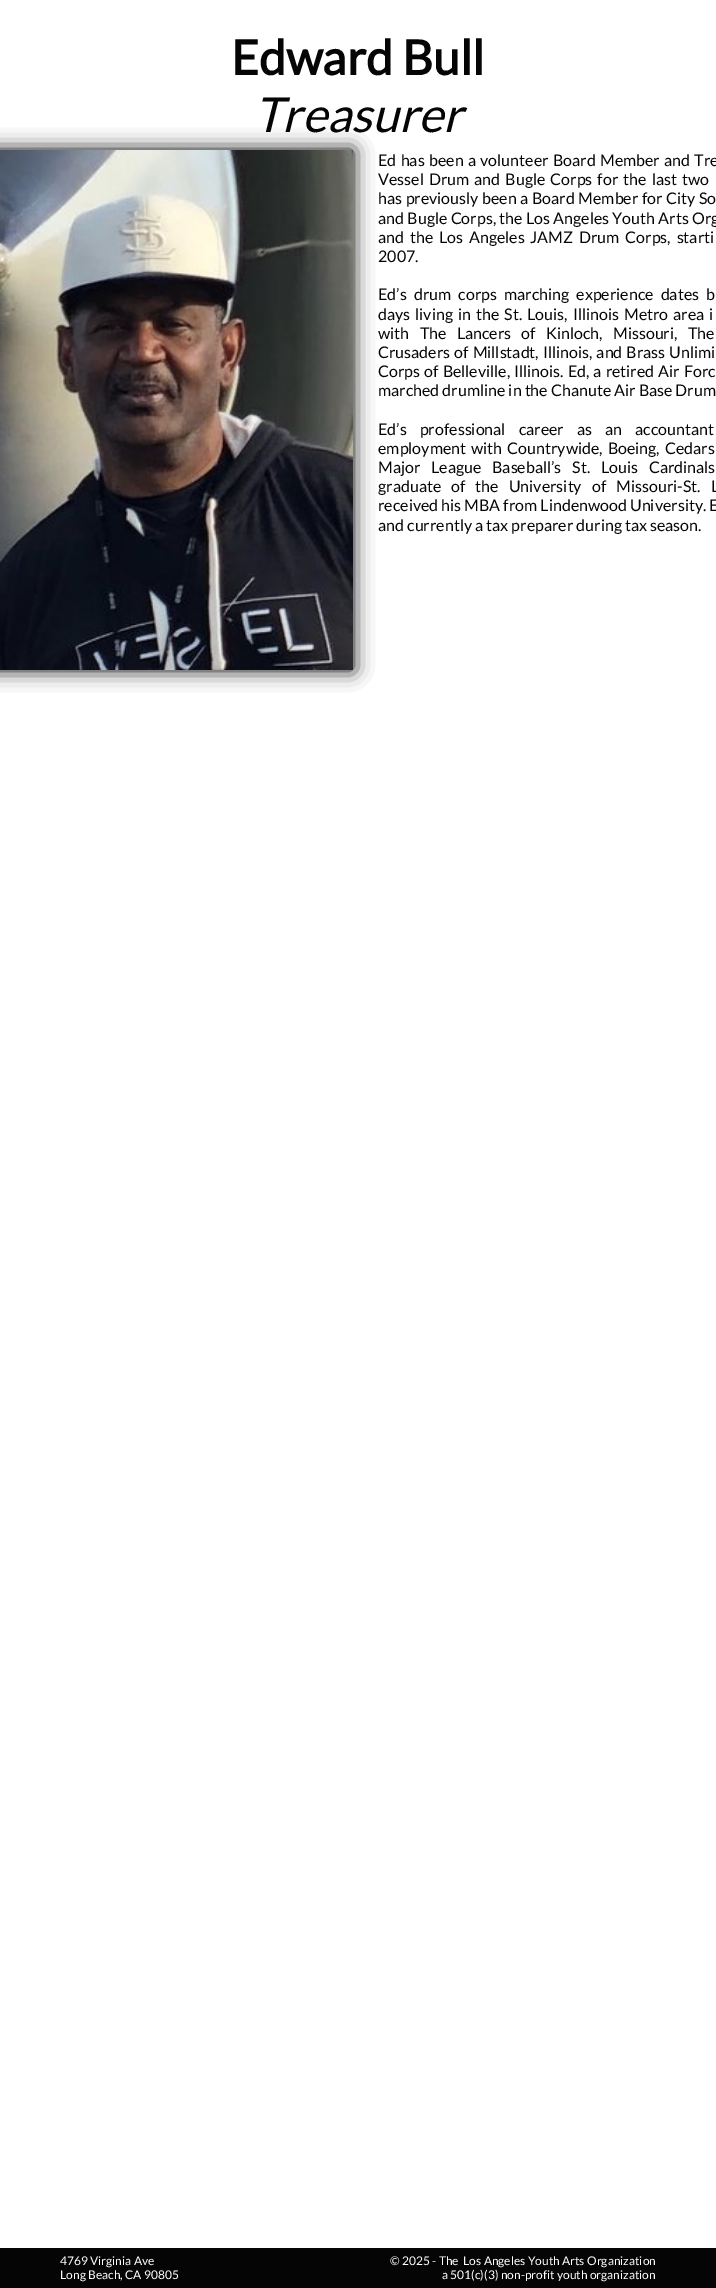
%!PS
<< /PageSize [716 2288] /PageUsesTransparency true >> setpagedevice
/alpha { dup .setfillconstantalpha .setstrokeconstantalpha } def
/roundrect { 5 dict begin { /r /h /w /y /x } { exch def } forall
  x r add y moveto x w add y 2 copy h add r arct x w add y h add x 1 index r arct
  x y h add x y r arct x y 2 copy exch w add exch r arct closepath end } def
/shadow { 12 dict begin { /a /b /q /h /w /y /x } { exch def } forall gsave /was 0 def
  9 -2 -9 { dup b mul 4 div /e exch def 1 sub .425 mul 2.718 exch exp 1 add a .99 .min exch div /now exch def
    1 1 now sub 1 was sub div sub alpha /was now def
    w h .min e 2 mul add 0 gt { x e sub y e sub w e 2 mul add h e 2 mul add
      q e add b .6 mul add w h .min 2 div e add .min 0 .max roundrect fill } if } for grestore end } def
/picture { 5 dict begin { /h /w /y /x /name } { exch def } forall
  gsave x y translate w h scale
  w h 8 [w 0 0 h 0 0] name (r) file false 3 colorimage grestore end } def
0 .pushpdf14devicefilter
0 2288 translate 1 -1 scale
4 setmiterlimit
1 setgray
0 0 716 2288 rectfill
/Lato-Bold [48 0 0 -48 0 0] selectfont
0.02 setgray
231 75 moveto (Edward Bull) show
/Lato-Italic [48 0 0 -48 0 0] selectfont
254 132 moveto (Treasurer) show
(img1.rgb) 0 150 353 520 picture
gsave
newpath 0 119 moveto 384 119 lineto 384 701 lineto 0 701 lineto closepath -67 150 moveto 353 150 lineto 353 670 lineto -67 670 lineto closepath eoclip newpath
0 setgray
-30 150 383 520 0 10 1 shadow
grestore
/Lato-Regular [16 0 0 -16 0 0] selectfont
378 166 moveto 1.25 0 32 (Ed has been a volunteer Board Member and Tre) widthshow
378 185 moveto 2 0 32 (Vessel Drum and Bugle Corps for the last two) widthshow
378 204 moveto 0.5 0 32 (has previously been a Board Member for City So) widthshow
378 224 moveto 0.25 0 32 (and Bugle Corps, the Los Angeles Youth Arts Org) widthshow
378 243 moveto 2.75 0 32 (and the Los Angeles JAMZ Drum Corps, starti) widthshow
378 262 moveto (2007.) show
378 300 moveto 4 0 32 (Ed’s drum corps marching experience dates b) widthshow
378 320 moveto 2 0 32 (days living in the St. Louis, Illinois Metro area i) widthshow
378 339 moveto 7.25 0 32 (with The Lancers of Kinloch, Missouri, The) widthshow
378 358 moveto 1 0 32 (Crusaders of Millstadt, Illinois, and Brass Unlimi) widthshow
378 377 moveto 1 0 32 (Corps of Belleville, Illinois. Ed, a retired Air Forc) widthshow
378 396 moveto (marched drumline in the Chanute Air Base Drum) show
378 435 moveto 10 0 32 (Ed’s professional career as an accountant) widthshow
378 454 moveto 2 0 32 (employment with Countrywide, Boeing, Cedars) widthshow
378 473 moveto 7.75 0 32 (Major League Baseball’s St. Louis Cardinals) widthshow
378 492 moveto 7 0 32 (graduate of the University of Missouri-St. L) widthshow
378 511 moveto (received his MBA from Lindenwood University. E) show
378 531 moveto (and currently a tax preparer during tax season.) show
0 2248 716 40 rectfill
/Lato-Regular [12 0 0 -12 0 0] selectfont
1 setgray
60 2265 moveto (4769 Virginia Ave) show
60 2279 moveto (Long Beach, CA 90805) show
390 2265 moveto (© 2025 - The  Los Angeles Youth Arts Organization) show
442 2279 moveto (a 501\(c\)\(3\) non-profit youth organization) show
.poppdf14devicefilter showpage
